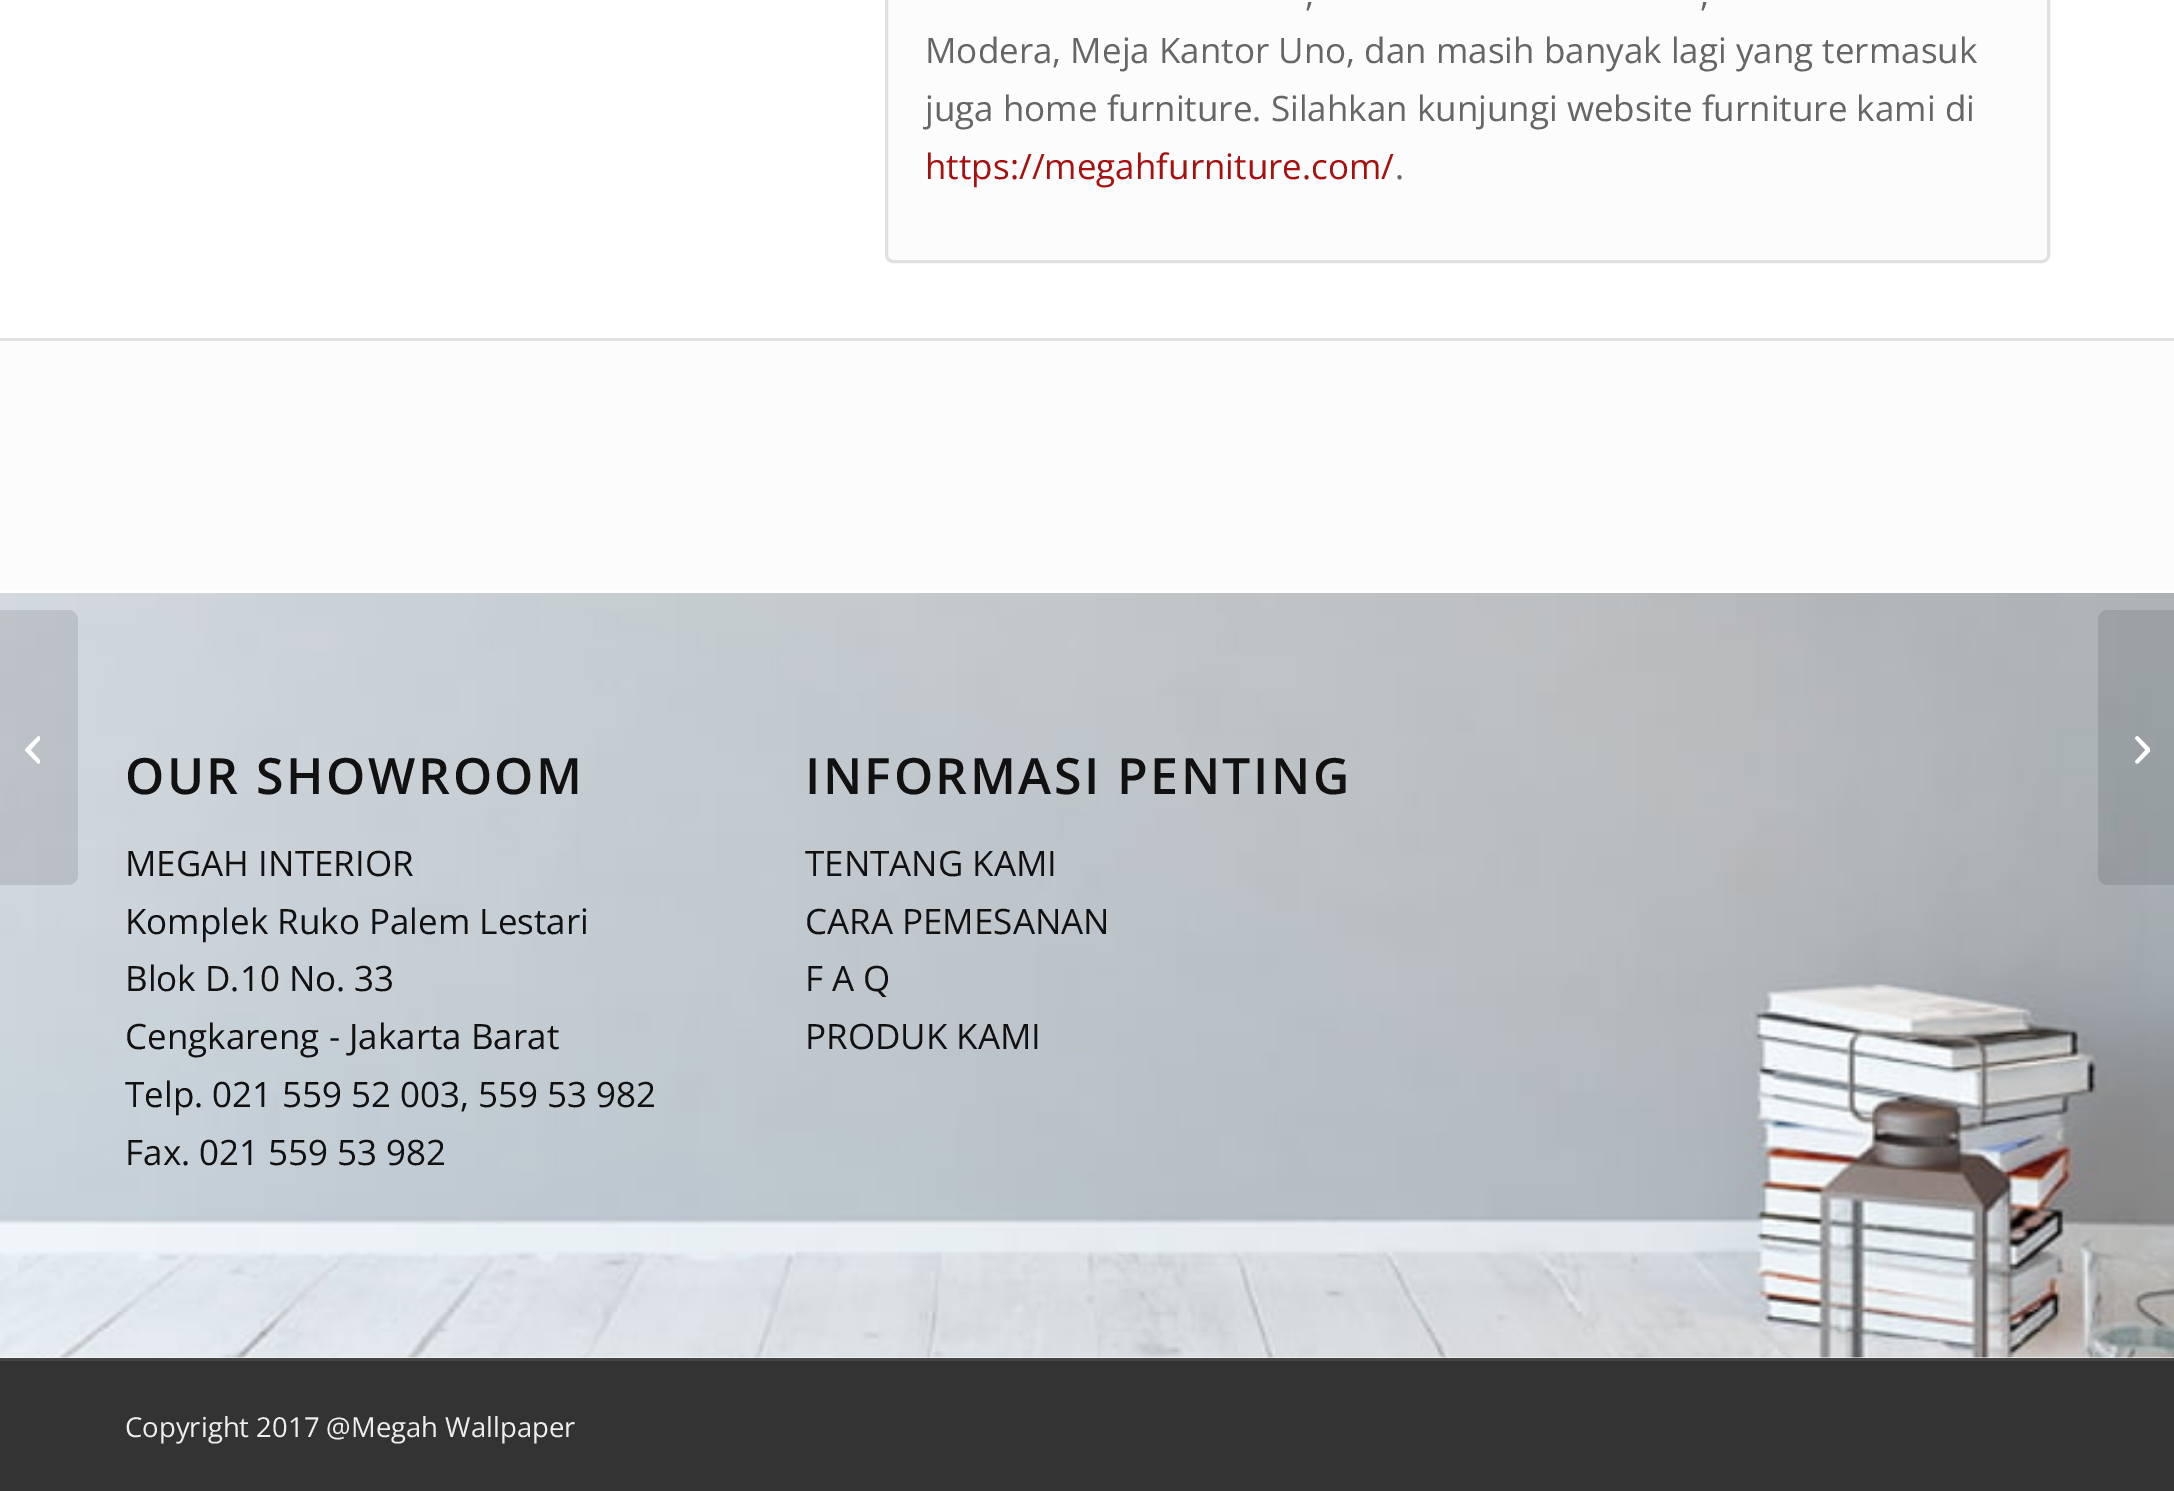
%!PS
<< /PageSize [2174 1491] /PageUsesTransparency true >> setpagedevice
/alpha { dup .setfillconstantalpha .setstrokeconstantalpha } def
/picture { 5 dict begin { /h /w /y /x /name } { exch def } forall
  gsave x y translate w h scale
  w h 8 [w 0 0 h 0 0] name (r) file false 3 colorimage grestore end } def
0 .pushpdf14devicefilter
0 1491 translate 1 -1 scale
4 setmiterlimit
1 setgray
0 0 2174 1491 rectfill
(img2.rgb) 0 593 2174 765 picture
0.1 alpha
0 setgray
newpath 0 610 moveto 68 610 lineto 73.5 610 78 614.5 78 620 curveto 78 875 lineto 78 880.5 73.5 885 68 885 curveto 0 885 lineto closepath fill
1 alpha
(img1.rgb) 25 736 15 28 picture
0.988 setgray
newpath 886.5 -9.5 moveto 2048.5 -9.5 lineto 2048.5 255 lineto 2048.5 258.5 2045.5 261.5 2042 261.5 curveto 893 261.5 lineto 889.5 261.5 886.5 258.5 886.5 255 curveto closepath gsave fill grestore
0.882 setgray
3 setlinewidth
stroke
/OpenSans-Regular [35 0 0 -35 0 0] selectfont
0.4 setgray
1305 6 moveto (,) show
1700 6 moveto (,) show
925 63 moveto (Modera, Meja Kantor Uno, dan masih banyak lagi yang termasuk) show
925 121 moveto (juga home furniture. Silahkan kunjungi website furniture kami di) show
0.659 0.063 0.063 setrgbcolor
925 179 moveto (https://megahfurniture.com/) show
0.4 setgray
1395 179 moveto (.) show
0.988 setgray
0 341 2174 249 rectfill
0.882 setgray
0 338 2174 3 rectfill
/OpenSans-SemiBold [50 0 0 -50 0 0] selectfont
0.067 setgray
125 794 moveto 2.5 0 (OUR SHOWROOM) ashow
/OpenSans-Regular [35 0 0 -35 0 0] selectfont
125 876 moveto (MEGAH INTERIOR) show
125 934 moveto (Komplek Ruko Palem Lestari) show
125 991 moveto (Blok D.10 No. 33) show
125 1049 moveto (Cengkareng - Jakarta Barat) show
125 1107 moveto (Telp. 021 559 52 003, 559 53 982) show
125 1165 moveto (Fax. 021 559 53 982) show
/OpenSans-SemiBold [50 0 0 -50 0 0] selectfont
805 794 moveto 2.5 0 (INFORMASI PENTING) ashow
/OpenSans-Regular [35 0 0 -35 0 0] selectfont
805 876 moveto (TENTANG KAMI) show
805 934 moveto (CARA PEMESANAN) show
805 991 moveto (F A Q) show
805 1049 moveto (PRODUK KAMI) show
0.2 setgray
0 1361 2174 130 rectfill
0.267 setgray
0 1358 2174 3 rectfill
/OpenSans-Regular [27.5 0 0 -27.5 0 0] selectfont
0.933 setgray
125 1437 moveto (Copyright 2017 @Megah Wallpaper) show
0.1 alpha
0 setgray
newpath 2108 610 moveto 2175 610 lineto 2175 885 lineto 2108 885 lineto 2102.5 885 2098 880.5 2098 875 curveto 2098 620 lineto 2098 614.5 2102.5 610 2108 610 curveto closepath fill
1 alpha
(img3.rgb) 2135 736 15 28 picture
.poppdf14devicefilter showpage
